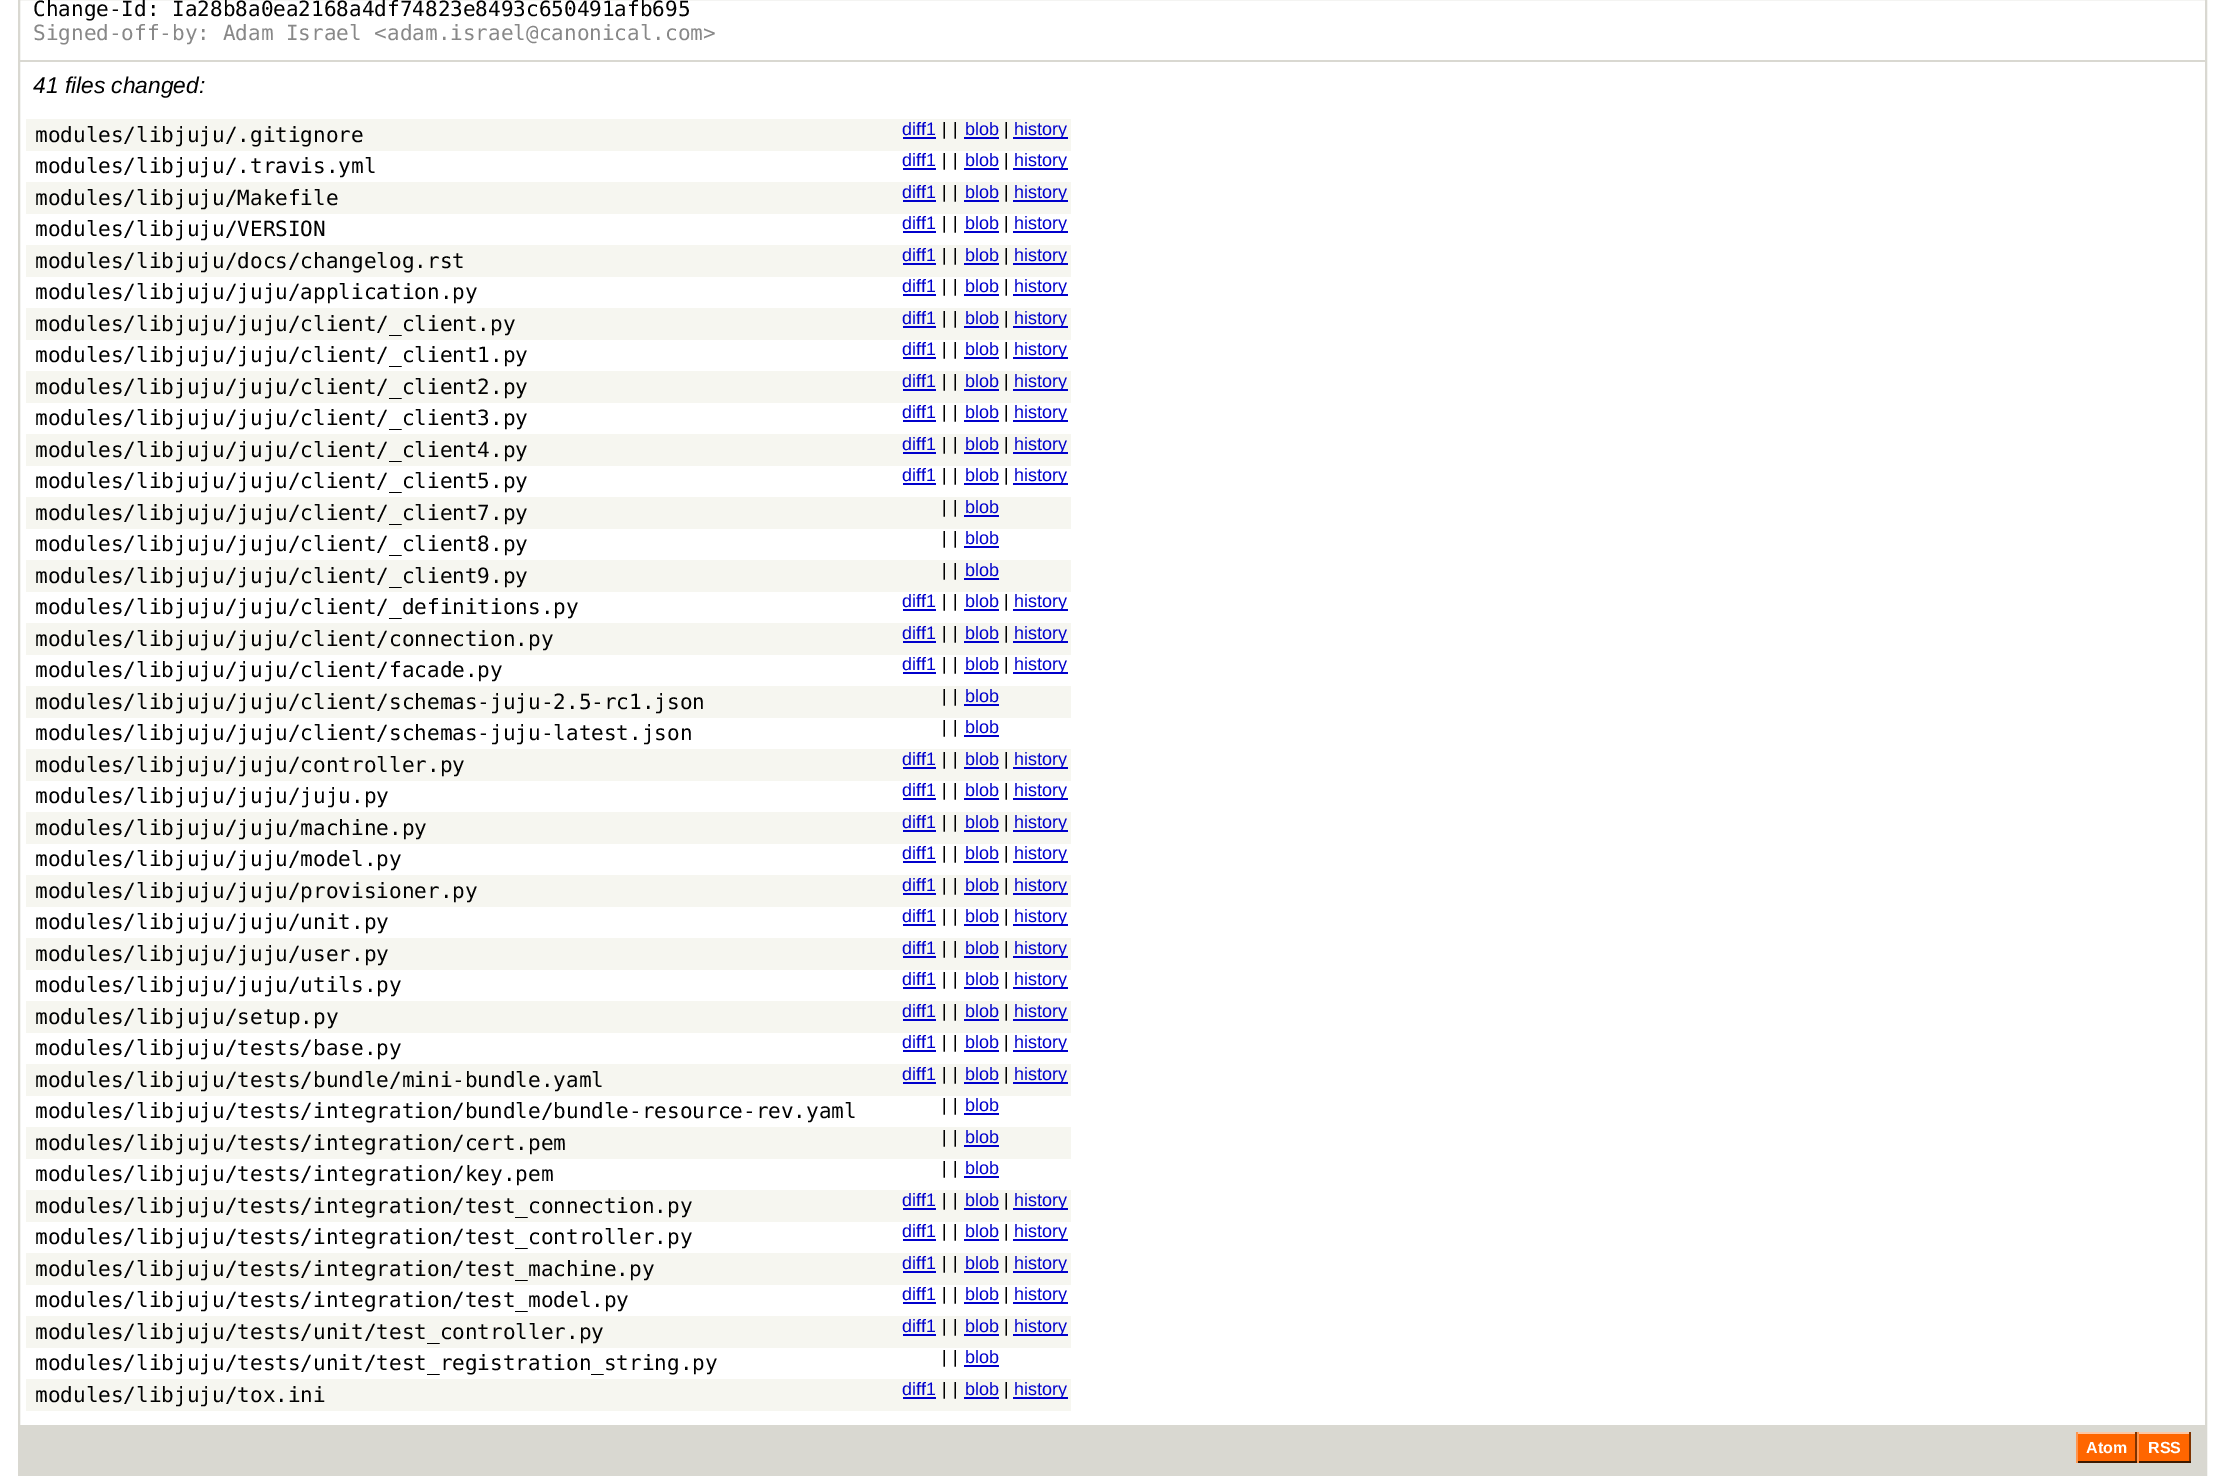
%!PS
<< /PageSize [2224 1476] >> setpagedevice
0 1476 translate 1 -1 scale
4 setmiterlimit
1 setgray
0 0 2224 1476 rectfill
0.851 0.847 0.82 setrgbcolor
2 setlinewidth
19 -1 2187 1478 rectstroke
/DejaVuSansMono-Regular [21 0 0 -21 0 0] selectfont
0 setgray
33 16 moveto (Change-Id: Ia28b8a0ea2168a4df74823e8493c650491afb695) show
0.533 setgray
33 40 moveto (Signed-off-by: Adam Israel <adam.israel@canonical.com>) show
0.851 0.847 0.82 setrgbcolor
19 60 2186 2 rectfill
/LiberationSans-Italic [22.75 0 0 -22.75 0 0] selectfont
0 setgray
33 93 moveto (41 files changed:) show
0.965 0.965 0.941 setrgbcolor
26 119 1045 32 rectfill
/DejaVuSansMono-Regular [21 0 0 -21 0 0] selectfont
0 setgray
35 142 moveto (modules/libjuju/.gitignore) show
/LiberationSans-Regular [18 0 0 -18 0 0] selectfont
0 0 0.8 setrgbcolor
902 135 moveto (diff1) show
903 137 33 2 rectfill
0 setgray
942 135 moveto (|) show
953 135 moveto (|) show
0 0 0.8 setrgbcolor
965 135 moveto (blob) show
964 137 35 2 rectfill
0 setgray
1004 135 moveto (|) show
0 0 0.8 setrgbcolor
1013 137 55 2 rectfill
1014 135 moveto (history) show
/DejaVuSansMono-Regular [21 0 0 -21 0 0] selectfont
0 setgray
35 173 moveto (modules/libjuju/.travis.yml) show
/LiberationSans-Regular [18 0 0 -18 0 0] selectfont
0 0 0.8 setrgbcolor
902 166 moveto (diff1) show
903 168 33 2 rectfill
0 setgray
942 166 moveto (|) show
953 166 moveto (|) show
0 0 0.8 setrgbcolor
965 166 moveto (blob) show
964 168 35 2 rectfill
0 setgray
1004 166 moveto (|) show
0 0 0.8 setrgbcolor
1013 168 55 2 rectfill
1014 166 moveto (history) show
0.965 0.965 0.941 setrgbcolor
26 182 1045 32 rectfill
/DejaVuSansMono-Regular [21 0 0 -21 0 0] selectfont
0 setgray
35 205 moveto (modules/libjuju/Makefile) show
/LiberationSans-Regular [18 0 0 -18 0 0] selectfont
0 0 0.8 setrgbcolor
902 198 moveto (diff1) show
903 200 33 2 rectfill
0 setgray
942 198 moveto (|) show
953 198 moveto (|) show
0 0 0.8 setrgbcolor
965 198 moveto (blob) show
964 200 35 2 rectfill
0 setgray
1004 198 moveto (|) show
0 0 0.8 setrgbcolor
1013 200 55 2 rectfill
1014 198 moveto (history) show
/DejaVuSansMono-Regular [21 0 0 -21 0 0] selectfont
0 setgray
35 236 moveto (modules/libjuju/VERSION) show
/LiberationSans-Regular [18 0 0 -18 0 0] selectfont
0 0 0.8 setrgbcolor
902 229 moveto (diff1) show
903 231 33 2 rectfill
0 setgray
942 229 moveto (|) show
953 229 moveto (|) show
0 0 0.8 setrgbcolor
965 229 moveto (blob) show
964 231 35 2 rectfill
0 setgray
1004 229 moveto (|) show
0 0 0.8 setrgbcolor
1013 231 55 2 rectfill
1014 229 moveto (history) show
0.965 0.965 0.941 setrgbcolor
26 245 1045 32 rectfill
/DejaVuSansMono-Regular [21 0 0 -21 0 0] selectfont
0 setgray
35 268 moveto (modules/libjuju/docs/changelog.rst) show
/LiberationSans-Regular [18 0 0 -18 0 0] selectfont
0 0 0.8 setrgbcolor
902 261 moveto (diff1) show
903 263 33 2 rectfill
0 setgray
942 261 moveto (|) show
953 261 moveto (|) show
0 0 0.8 setrgbcolor
965 261 moveto (blob) show
964 263 35 2 rectfill
0 setgray
1004 261 moveto (|) show
0 0 0.8 setrgbcolor
1013 263 55 2 rectfill
1014 261 moveto (history) show
/DejaVuSansMono-Regular [21 0 0 -21 0 0] selectfont
0 setgray
35 299 moveto (modules/libjuju/juju/application.py) show
/LiberationSans-Regular [18 0 0 -18 0 0] selectfont
0 0 0.8 setrgbcolor
902 292 moveto (diff1) show
903 294 33 2 rectfill
0 setgray
942 292 moveto (|) show
953 292 moveto (|) show
0 0 0.8 setrgbcolor
965 292 moveto (blob) show
964 294 35 2 rectfill
0 setgray
1004 292 moveto (|) show
0 0 0.8 setrgbcolor
1013 294 55 2 rectfill
1014 292 moveto (history) show
0.965 0.965 0.941 setrgbcolor
26 308 1045 32 rectfill
/DejaVuSansMono-Regular [21 0 0 -21 0 0] selectfont
0 setgray
35 331 moveto (modules/libjuju/juju/client/_client.py) show
/LiberationSans-Regular [18 0 0 -18 0 0] selectfont
0 0 0.8 setrgbcolor
902 324 moveto (diff1) show
903 326 33 2 rectfill
0 setgray
942 324 moveto (|) show
953 324 moveto (|) show
0 0 0.8 setrgbcolor
965 324 moveto (blob) show
964 326 35 2 rectfill
0 setgray
1004 324 moveto (|) show
0 0 0.8 setrgbcolor
1013 326 55 2 rectfill
1014 324 moveto (history) show
/DejaVuSansMono-Regular [21 0 0 -21 0 0] selectfont
0 setgray
35 362 moveto (modules/libjuju/juju/client/_client1.py) show
/LiberationSans-Regular [18 0 0 -18 0 0] selectfont
0 0 0.8 setrgbcolor
902 355 moveto (diff1) show
903 357 33 2 rectfill
0 setgray
942 355 moveto (|) show
953 355 moveto (|) show
0 0 0.8 setrgbcolor
965 355 moveto (blob) show
964 357 35 2 rectfill
0 setgray
1004 355 moveto (|) show
0 0 0.8 setrgbcolor
1013 357 55 2 rectfill
1014 355 moveto (history) show
0.965 0.965 0.941 setrgbcolor
26 371 1045 32 rectfill
/DejaVuSansMono-Regular [21 0 0 -21 0 0] selectfont
0 setgray
35 394 moveto (modules/libjuju/juju/client/_client2.py) show
/LiberationSans-Regular [18 0 0 -18 0 0] selectfont
0 0 0.8 setrgbcolor
902 387 moveto (diff1) show
903 389 33 2 rectfill
0 setgray
942 387 moveto (|) show
953 387 moveto (|) show
0 0 0.8 setrgbcolor
965 387 moveto (blob) show
964 389 35 2 rectfill
0 setgray
1004 387 moveto (|) show
0 0 0.8 setrgbcolor
1013 389 55 2 rectfill
1014 387 moveto (history) show
/DejaVuSansMono-Regular [21 0 0 -21 0 0] selectfont
0 setgray
35 425 moveto (modules/libjuju/juju/client/_client3.py) show
/LiberationSans-Regular [18 0 0 -18 0 0] selectfont
0 0 0.8 setrgbcolor
902 418 moveto (diff1) show
903 420 33 2 rectfill
0 setgray
942 418 moveto (|) show
953 418 moveto (|) show
0 0 0.8 setrgbcolor
965 418 moveto (blob) show
964 420 35 2 rectfill
0 setgray
1004 418 moveto (|) show
0 0 0.8 setrgbcolor
1013 420 55 2 rectfill
1014 418 moveto (history) show
0.965 0.965 0.941 setrgbcolor
26 434 1045 32 rectfill
/DejaVuSansMono-Regular [21 0 0 -21 0 0] selectfont
0 setgray
35 457 moveto (modules/libjuju/juju/client/_client4.py) show
/LiberationSans-Regular [18 0 0 -18 0 0] selectfont
0 0 0.8 setrgbcolor
902 450 moveto (diff1) show
903 452 33 2 rectfill
0 setgray
942 450 moveto (|) show
953 450 moveto (|) show
0 0 0.8 setrgbcolor
965 450 moveto (blob) show
964 452 35 2 rectfill
0 setgray
1004 450 moveto (|) show
0 0 0.8 setrgbcolor
1013 452 55 2 rectfill
1014 450 moveto (history) show
/DejaVuSansMono-Regular [21 0 0 -21 0 0] selectfont
0 setgray
35 488 moveto (modules/libjuju/juju/client/_client5.py) show
/LiberationSans-Regular [18 0 0 -18 0 0] selectfont
0 0 0.8 setrgbcolor
902 481 moveto (diff1) show
903 483 33 2 rectfill
0 setgray
942 481 moveto (|) show
953 481 moveto (|) show
0 0 0.8 setrgbcolor
965 481 moveto (blob) show
964 483 35 2 rectfill
0 setgray
1004 481 moveto (|) show
0 0 0.8 setrgbcolor
1013 483 55 2 rectfill
1014 481 moveto (history) show
0.965 0.965 0.941 setrgbcolor
26 497 1045 32 rectfill
/DejaVuSansMono-Regular [21 0 0 -21 0 0] selectfont
0 setgray
35 520 moveto (modules/libjuju/juju/client/_client7.py) show
/LiberationSans-Regular [18 0 0 -18 0 0] selectfont
942 513 moveto (|) show
953 513 moveto (|) show
0 0 0.8 setrgbcolor
965 513 moveto (blob) show
964 515 35 2 rectfill
/DejaVuSansMono-Regular [21 0 0 -21 0 0] selectfont
0 setgray
35 551 moveto (modules/libjuju/juju/client/_client8.py) show
/LiberationSans-Regular [18 0 0 -18 0 0] selectfont
942 544 moveto (|) show
953 544 moveto (|) show
0 0 0.8 setrgbcolor
965 544 moveto (blob) show
964 546 35 2 rectfill
0.965 0.965 0.941 setrgbcolor
26 560 1045 32 rectfill
/DejaVuSansMono-Regular [21 0 0 -21 0 0] selectfont
0 setgray
35 583 moveto (modules/libjuju/juju/client/_client9.py) show
/LiberationSans-Regular [18 0 0 -18 0 0] selectfont
942 576 moveto (|) show
953 576 moveto (|) show
0 0 0.8 setrgbcolor
965 576 moveto (blob) show
964 578 35 2 rectfill
/DejaVuSansMono-Regular [21 0 0 -21 0 0] selectfont
0 setgray
35 614 moveto (modules/libjuju/juju/client/_definitions.py) show
/LiberationSans-Regular [18 0 0 -18 0 0] selectfont
0 0 0.8 setrgbcolor
902 607 moveto (diff1) show
903 609 33 2 rectfill
0 setgray
942 607 moveto (|) show
953 607 moveto (|) show
0 0 0.8 setrgbcolor
965 607 moveto (blob) show
964 609 35 2 rectfill
0 setgray
1004 607 moveto (|) show
0 0 0.8 setrgbcolor
1013 609 55 2 rectfill
1014 607 moveto (history) show
0.965 0.965 0.941 setrgbcolor
26 623 1045 32 rectfill
/DejaVuSansMono-Regular [21 0 0 -21 0 0] selectfont
0 setgray
35 646 moveto (modules/libjuju/juju/client/connection.py) show
/LiberationSans-Regular [18 0 0 -18 0 0] selectfont
0 0 0.8 setrgbcolor
902 639 moveto (diff1) show
903 641 33 2 rectfill
0 setgray
942 639 moveto (|) show
953 639 moveto (|) show
0 0 0.8 setrgbcolor
965 639 moveto (blob) show
964 641 35 2 rectfill
0 setgray
1004 639 moveto (|) show
0 0 0.8 setrgbcolor
1013 641 55 2 rectfill
1014 639 moveto (history) show
/DejaVuSansMono-Regular [21 0 0 -21 0 0] selectfont
0 setgray
35 677 moveto (modules/libjuju/juju/client/facade.py) show
/LiberationSans-Regular [18 0 0 -18 0 0] selectfont
0 0 0.8 setrgbcolor
902 670 moveto (diff1) show
903 672 33 2 rectfill
0 setgray
942 670 moveto (|) show
953 670 moveto (|) show
0 0 0.8 setrgbcolor
965 670 moveto (blob) show
964 672 35 2 rectfill
0 setgray
1004 670 moveto (|) show
0 0 0.8 setrgbcolor
1013 672 55 2 rectfill
1014 670 moveto (history) show
0.965 0.965 0.941 setrgbcolor
26 686 1045 32 rectfill
/DejaVuSansMono-Regular [21 0 0 -21 0 0] selectfont
0 setgray
35 709 moveto (modules/libjuju/juju/client/schemas-juju-2.5-rc1.json) show
/LiberationSans-Regular [18 0 0 -18 0 0] selectfont
942 702 moveto (|) show
953 702 moveto (|) show
0 0 0.8 setrgbcolor
965 702 moveto (blob) show
964 704 35 2 rectfill
/DejaVuSansMono-Regular [21 0 0 -21 0 0] selectfont
0 setgray
35 740 moveto (modules/libjuju/juju/client/schemas-juju-latest.json) show
/LiberationSans-Regular [18 0 0 -18 0 0] selectfont
942 733 moveto (|) show
953 733 moveto (|) show
0 0 0.8 setrgbcolor
965 733 moveto (blob) show
964 735 35 2 rectfill
0.965 0.965 0.941 setrgbcolor
26 749 1045 32 rectfill
/DejaVuSansMono-Regular [21 0 0 -21 0 0] selectfont
0 setgray
35 772 moveto (modules/libjuju/juju/controller.py) show
/LiberationSans-Regular [18 0 0 -18 0 0] selectfont
0 0 0.8 setrgbcolor
902 765 moveto (diff1) show
903 767 33 2 rectfill
0 setgray
942 765 moveto (|) show
953 765 moveto (|) show
0 0 0.8 setrgbcolor
965 765 moveto (blob) show
964 767 35 2 rectfill
0 setgray
1004 765 moveto (|) show
0 0 0.8 setrgbcolor
1013 767 55 2 rectfill
1014 765 moveto (history) show
/DejaVuSansMono-Regular [21 0 0 -21 0 0] selectfont
0 setgray
35 803 moveto (modules/libjuju/juju/juju.py) show
/LiberationSans-Regular [18 0 0 -18 0 0] selectfont
0 0 0.8 setrgbcolor
902 796 moveto (diff1) show
903 798 33 2 rectfill
0 setgray
942 796 moveto (|) show
953 796 moveto (|) show
0 0 0.8 setrgbcolor
965 796 moveto (blob) show
964 798 35 2 rectfill
0 setgray
1004 796 moveto (|) show
0 0 0.8 setrgbcolor
1013 798 55 2 rectfill
1014 796 moveto (history) show
0.965 0.965 0.941 setrgbcolor
26 812 1045 32 rectfill
/DejaVuSansMono-Regular [21 0 0 -21 0 0] selectfont
0 setgray
35 835 moveto (modules/libjuju/juju/machine.py) show
/LiberationSans-Regular [18 0 0 -18 0 0] selectfont
0 0 0.8 setrgbcolor
902 828 moveto (diff1) show
903 830 33 2 rectfill
0 setgray
942 828 moveto (|) show
953 828 moveto (|) show
0 0 0.8 setrgbcolor
965 828 moveto (blob) show
964 830 35 2 rectfill
0 setgray
1004 828 moveto (|) show
0 0 0.8 setrgbcolor
1013 830 55 2 rectfill
1014 828 moveto (history) show
/DejaVuSansMono-Regular [21 0 0 -21 0 0] selectfont
0 setgray
35 866 moveto (modules/libjuju/juju/model.py) show
/LiberationSans-Regular [18 0 0 -18 0 0] selectfont
0 0 0.8 setrgbcolor
902 859 moveto (diff1) show
903 861 33 2 rectfill
0 setgray
942 859 moveto (|) show
953 859 moveto (|) show
0 0 0.8 setrgbcolor
965 859 moveto (blob) show
964 861 35 2 rectfill
0 setgray
1004 859 moveto (|) show
0 0 0.8 setrgbcolor
1013 861 55 2 rectfill
1014 859 moveto (history) show
0.965 0.965 0.941 setrgbcolor
26 875 1045 32 rectfill
/DejaVuSansMono-Regular [21 0 0 -21 0 0] selectfont
0 setgray
35 898 moveto (modules/libjuju/juju/provisioner.py) show
/LiberationSans-Regular [18 0 0 -18 0 0] selectfont
0 0 0.8 setrgbcolor
902 891 moveto (diff1) show
903 893 33 2 rectfill
0 setgray
942 891 moveto (|) show
953 891 moveto (|) show
0 0 0.8 setrgbcolor
965 891 moveto (blob) show
964 893 35 2 rectfill
0 setgray
1004 891 moveto (|) show
0 0 0.8 setrgbcolor
1013 893 55 2 rectfill
1014 891 moveto (history) show
/DejaVuSansMono-Regular [21 0 0 -21 0 0] selectfont
0 setgray
35 929 moveto (modules/libjuju/juju/unit.py) show
/LiberationSans-Regular [18 0 0 -18 0 0] selectfont
0 0 0.8 setrgbcolor
902 922 moveto (diff1) show
903 924 33 2 rectfill
0 setgray
942 922 moveto (|) show
953 922 moveto (|) show
0 0 0.8 setrgbcolor
965 922 moveto (blob) show
964 924 35 2 rectfill
0 setgray
1004 922 moveto (|) show
0 0 0.8 setrgbcolor
1013 924 55 2 rectfill
1014 922 moveto (history) show
0.965 0.965 0.941 setrgbcolor
26 938 1045 32 rectfill
/DejaVuSansMono-Regular [21 0 0 -21 0 0] selectfont
0 setgray
35 961 moveto (modules/libjuju/juju/user.py) show
/LiberationSans-Regular [18 0 0 -18 0 0] selectfont
0 0 0.8 setrgbcolor
902 954 moveto (diff1) show
903 956 33 2 rectfill
0 setgray
942 954 moveto (|) show
953 954 moveto (|) show
0 0 0.8 setrgbcolor
965 954 moveto (blob) show
964 956 35 2 rectfill
0 setgray
1004 954 moveto (|) show
0 0 0.8 setrgbcolor
1013 956 55 2 rectfill
1014 954 moveto (history) show
/DejaVuSansMono-Regular [21 0 0 -21 0 0] selectfont
0 setgray
35 992 moveto (modules/libjuju/juju/utils.py) show
/LiberationSans-Regular [18 0 0 -18 0 0] selectfont
0 0 0.8 setrgbcolor
902 985 moveto (diff1) show
903 987 33 2 rectfill
0 setgray
942 985 moveto (|) show
953 985 moveto (|) show
0 0 0.8 setrgbcolor
965 985 moveto (blob) show
964 987 35 2 rectfill
0 setgray
1004 985 moveto (|) show
0 0 0.8 setrgbcolor
1013 987 55 2 rectfill
1014 985 moveto (history) show
0.965 0.965 0.941 setrgbcolor
26 1001 1045 32 rectfill
/DejaVuSansMono-Regular [21 0 0 -21 0 0] selectfont
0 setgray
35 1024 moveto (modules/libjuju/setup.py) show
/LiberationSans-Regular [18 0 0 -18 0 0] selectfont
0 0 0.8 setrgbcolor
902 1017 moveto (diff1) show
903 1019 33 2 rectfill
0 setgray
942 1017 moveto (|) show
953 1017 moveto (|) show
0 0 0.8 setrgbcolor
965 1017 moveto (blob) show
964 1019 35 2 rectfill
0 setgray
1004 1017 moveto (|) show
0 0 0.8 setrgbcolor
1013 1019 55 2 rectfill
1014 1017 moveto (history) show
/DejaVuSansMono-Regular [21 0 0 -21 0 0] selectfont
0 setgray
35 1055 moveto (modules/libjuju/tests/base.py) show
/LiberationSans-Regular [18 0 0 -18 0 0] selectfont
0 0 0.8 setrgbcolor
902 1048 moveto (diff1) show
903 1050 33 2 rectfill
0 setgray
942 1048 moveto (|) show
953 1048 moveto (|) show
0 0 0.8 setrgbcolor
965 1048 moveto (blob) show
964 1050 35 2 rectfill
0 setgray
1004 1048 moveto (|) show
0 0 0.8 setrgbcolor
1013 1050 55 2 rectfill
1014 1048 moveto (history) show
0.965 0.965 0.941 setrgbcolor
26 1064 1045 32 rectfill
/DejaVuSansMono-Regular [21 0 0 -21 0 0] selectfont
0 setgray
35 1087 moveto (modules/libjuju/tests/bundle/mini-bundle.yaml) show
/LiberationSans-Regular [18 0 0 -18 0 0] selectfont
0 0 0.8 setrgbcolor
902 1080 moveto (diff1) show
903 1082 33 2 rectfill
0 setgray
942 1080 moveto (|) show
953 1080 moveto (|) show
0 0 0.8 setrgbcolor
965 1080 moveto (blob) show
964 1082 35 2 rectfill
0 setgray
1004 1080 moveto (|) show
0 0 0.8 setrgbcolor
1013 1082 55 2 rectfill
1014 1080 moveto (history) show
/DejaVuSansMono-Regular [21 0 0 -21 0 0] selectfont
0 setgray
35 1118 moveto (modules/libjuju/tests/integration/bundle/bundle-resource-rev.yaml) show
/LiberationSans-Regular [18 0 0 -18 0 0] selectfont
942 1111 moveto (|) show
953 1111 moveto (|) show
0 0 0.8 setrgbcolor
965 1111 moveto (blob) show
964 1113 35 2 rectfill
0.965 0.965 0.941 setrgbcolor
26 1127 1045 32 rectfill
/DejaVuSansMono-Regular [21 0 0 -21 0 0] selectfont
0 setgray
35 1150 moveto (modules/libjuju/tests/integration/cert.pem) show
/LiberationSans-Regular [18 0 0 -18 0 0] selectfont
942 1143 moveto (|) show
953 1143 moveto (|) show
0 0 0.8 setrgbcolor
965 1143 moveto (blob) show
964 1145 35 2 rectfill
/DejaVuSansMono-Regular [21 0 0 -21 0 0] selectfont
0 setgray
35 1181 moveto (modules/libjuju/tests/integration/key.pem) show
/LiberationSans-Regular [18 0 0 -18 0 0] selectfont
942 1174 moveto (|) show
953 1174 moveto (|) show
0 0 0.8 setrgbcolor
965 1174 moveto (blob) show
964 1176 35 2 rectfill
0.965 0.965 0.941 setrgbcolor
26 1190 1045 32 rectfill
/DejaVuSansMono-Regular [21 0 0 -21 0 0] selectfont
0 setgray
35 1213 moveto (modules/libjuju/tests/integration/test_connection.py) show
/LiberationSans-Regular [18 0 0 -18 0 0] selectfont
0 0 0.8 setrgbcolor
902 1206 moveto (diff1) show
903 1208 33 2 rectfill
0 setgray
942 1206 moveto (|) show
953 1206 moveto (|) show
0 0 0.8 setrgbcolor
965 1206 moveto (blob) show
964 1208 35 2 rectfill
0 setgray
1004 1206 moveto (|) show
0 0 0.8 setrgbcolor
1013 1208 55 2 rectfill
1014 1206 moveto (history) show
/DejaVuSansMono-Regular [21 0 0 -21 0 0] selectfont
0 setgray
35 1244 moveto (modules/libjuju/tests/integration/test_controller.py) show
/LiberationSans-Regular [18 0 0 -18 0 0] selectfont
0 0 0.8 setrgbcolor
902 1237 moveto (diff1) show
903 1239 33 2 rectfill
0 setgray
942 1237 moveto (|) show
953 1237 moveto (|) show
0 0 0.8 setrgbcolor
965 1237 moveto (blob) show
964 1239 35 2 rectfill
0 setgray
1004 1237 moveto (|) show
0 0 0.8 setrgbcolor
1013 1239 55 2 rectfill
1014 1237 moveto (history) show
0.965 0.965 0.941 setrgbcolor
26 1253 1045 32 rectfill
/DejaVuSansMono-Regular [21 0 0 -21 0 0] selectfont
0 setgray
35 1276 moveto (modules/libjuju/tests/integration/test_machine.py) show
/LiberationSans-Regular [18 0 0 -18 0 0] selectfont
0 0 0.8 setrgbcolor
902 1269 moveto (diff1) show
903 1271 33 2 rectfill
0 setgray
942 1269 moveto (|) show
953 1269 moveto (|) show
0 0 0.8 setrgbcolor
965 1269 moveto (blob) show
964 1271 35 2 rectfill
0 setgray
1004 1269 moveto (|) show
0 0 0.8 setrgbcolor
1013 1271 55 2 rectfill
1014 1269 moveto (history) show
/DejaVuSansMono-Regular [21 0 0 -21 0 0] selectfont
0 setgray
35 1307 moveto (modules/libjuju/tests/integration/test_model.py) show
/LiberationSans-Regular [18 0 0 -18 0 0] selectfont
0 0 0.8 setrgbcolor
902 1300 moveto (diff1) show
903 1302 33 2 rectfill
0 setgray
942 1300 moveto (|) show
953 1300 moveto (|) show
0 0 0.8 setrgbcolor
965 1300 moveto (blob) show
964 1302 35 2 rectfill
0 setgray
1004 1300 moveto (|) show
0 0 0.8 setrgbcolor
1013 1302 55 2 rectfill
1014 1300 moveto (history) show
0.965 0.965 0.941 setrgbcolor
26 1316 1045 32 rectfill
/DejaVuSansMono-Regular [21 0 0 -21 0 0] selectfont
0 setgray
35 1339 moveto (modules/libjuju/tests/unit/test_controller.py) show
/LiberationSans-Regular [18 0 0 -18 0 0] selectfont
0 0 0.8 setrgbcolor
902 1332 moveto (diff1) show
903 1334 33 2 rectfill
0 setgray
942 1332 moveto (|) show
953 1332 moveto (|) show
0 0 0.8 setrgbcolor
965 1332 moveto (blob) show
964 1334 35 2 rectfill
0 setgray
1004 1332 moveto (|) show
0 0 0.8 setrgbcolor
1013 1334 55 2 rectfill
1014 1332 moveto (history) show
/DejaVuSansMono-Regular [21 0 0 -21 0 0] selectfont
0 setgray
35 1370 moveto (modules/libjuju/tests/unit/test_registration_string.py) show
/LiberationSans-Regular [18 0 0 -18 0 0] selectfont
942 1363 moveto (|) show
953 1363 moveto (|) show
0 0 0.8 setrgbcolor
965 1363 moveto (blob) show
964 1365 35 2 rectfill
0.965 0.965 0.941 setrgbcolor
26 1379 1045 32 rectfill
/DejaVuSansMono-Regular [21 0 0 -21 0 0] selectfont
0 setgray
35 1402 moveto (modules/libjuju/tox.ini) show
/LiberationSans-Regular [18 0 0 -18 0 0] selectfont
0 0 0.8 setrgbcolor
902 1395 moveto (diff1) show
903 1397 33 2 rectfill
0 setgray
942 1395 moveto (|) show
953 1395 moveto (|) show
0 0 0.8 setrgbcolor
965 1395 moveto (blob) show
964 1397 35 2 rectfill
0 setgray
1004 1395 moveto (|) show
0 0 0.8 setrgbcolor
1013 1397 55 2 rectfill
1014 1395 moveto (history) show
0.851 0.847 0.82 setrgbcolor
20 1425 2185 51 rectfill
1 0.4 0 setrgbcolor
2078 1434 57 27 rectfill
0.988 0.78 0.647 setrgbcolor
2076 1432 115 2 rectfill
0.49 0.2 0.008 setrgbcolor
2135 1432 2 31 rectfill
0.243 0.102 0.004 setrgbcolor
2076 1461 61 2 rectfill
1 0.584 0.306 setrgbcolor
2076 1432 2 31 rectfill
/LiberationSans-Bold [16 0 0 -16 0 0] selectfont
1 setgray
2086 1453 moveto (Atom) show
1 0.4 0 setrgbcolor
2139 1434 50 27 rectfill
0.49 0.2 0.008 setrgbcolor
2189 1432 2 31 rectfill
0.243 0.102 0.004 setrgbcolor
2137 1461 54 2 rectfill
1 0.584 0.306 setrgbcolor
2137 1432 2 31 rectfill
1 setgray
2148 1453 moveto (RSS) show
showpage
